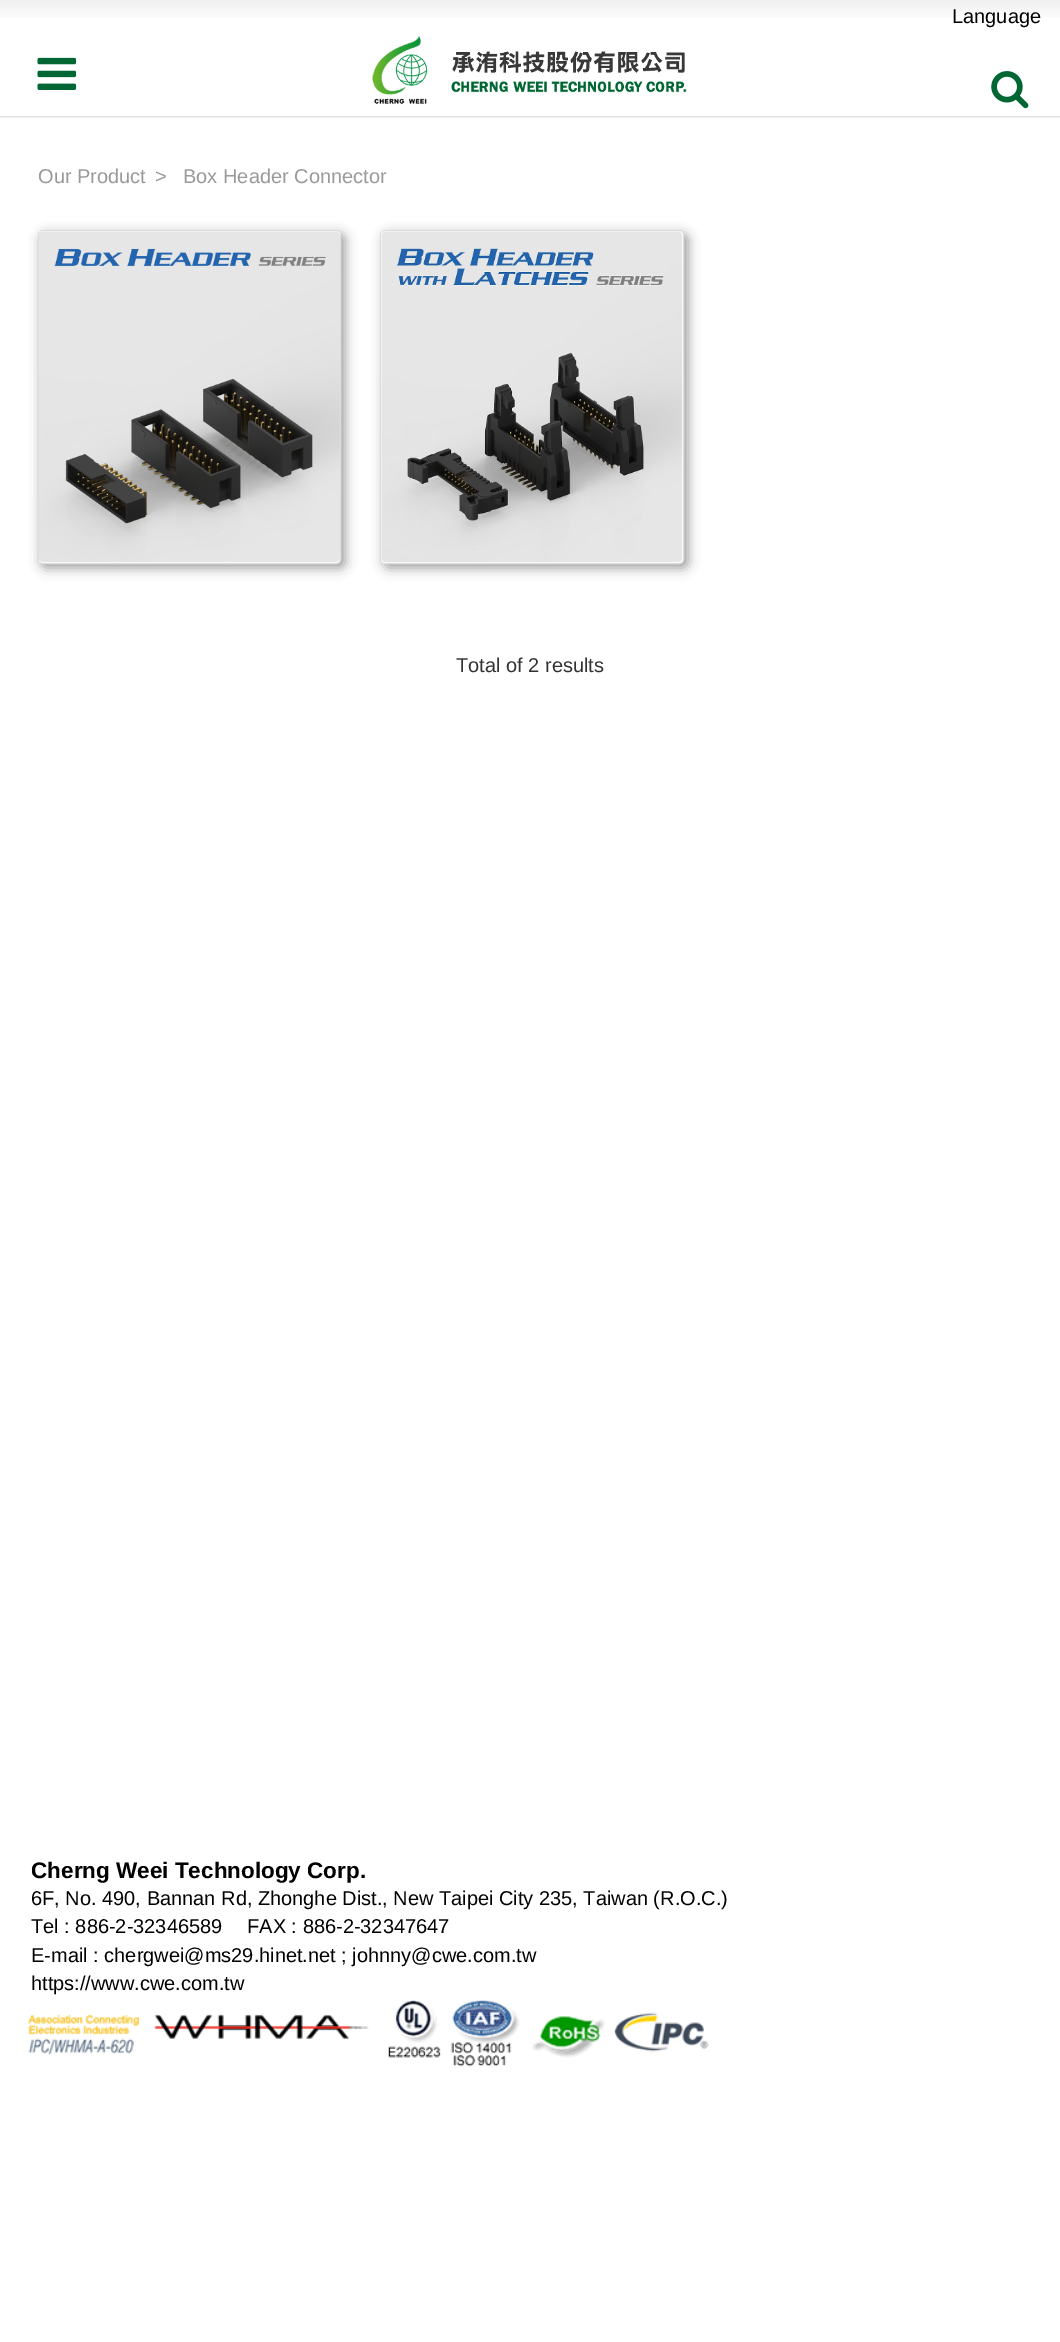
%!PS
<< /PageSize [1060 2342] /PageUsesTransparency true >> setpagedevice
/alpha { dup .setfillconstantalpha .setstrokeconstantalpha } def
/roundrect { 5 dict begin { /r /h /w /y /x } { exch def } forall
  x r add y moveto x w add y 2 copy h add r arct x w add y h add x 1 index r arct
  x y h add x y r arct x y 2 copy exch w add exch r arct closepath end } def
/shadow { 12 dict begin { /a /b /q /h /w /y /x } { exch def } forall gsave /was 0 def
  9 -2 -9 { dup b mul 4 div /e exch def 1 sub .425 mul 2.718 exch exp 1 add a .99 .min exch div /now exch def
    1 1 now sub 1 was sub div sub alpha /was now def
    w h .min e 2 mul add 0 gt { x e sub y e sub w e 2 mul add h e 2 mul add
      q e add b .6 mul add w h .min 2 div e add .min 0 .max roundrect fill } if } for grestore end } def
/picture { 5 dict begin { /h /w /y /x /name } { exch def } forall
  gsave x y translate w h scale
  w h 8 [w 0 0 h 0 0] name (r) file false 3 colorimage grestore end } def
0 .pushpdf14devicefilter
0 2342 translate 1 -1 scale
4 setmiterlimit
1 setgray
0 0 1060 2342 rectfill
gsave newpath 0 0 moveto 1060 0 lineto 1060 18 lineto 0 18 lineto closepath clip newpath
<< /ShadingType 2 /ColorSpace /DeviceRGB /Coords [530 0 530 116] /Extend [true true] /Function << /FunctionType 3 /Domain [0 1] /Functions [<< /FunctionType 2 /Domain [0 1] /C0 [0.941 0.941 0.941] /C1 [1 1 1] /N 1 >> << /FunctionType 2 /Domain [0 1] /C0 [1 1 1] /C1 [1 1 1] /N 1 >>] /Bounds [0.19] /Encode [0 1 0 1] >> >> shfill grestore
gsave newpath 0 117 moveto 1060 117 lineto 1060 118 lineto 0 118 lineto closepath clip newpath
<< /ShadingType 2 /ColorSpace /DeviceRGB /Coords [530 116 530 233] /Extend [true true] /Function << /FunctionType 3 /Domain [0 1] /Functions [<< /FunctionType 2 /Domain [0 1] /C0 [0.941 0.941 0.941] /C1 [1 1 1] /N 1 >> << /FunctionType 2 /Domain [0 1] /C0 [1 1 1] /C1 [1 1 1] /N 1 >>] /Bounds [0.19] /Encode [0 1 0 1] >> >> shfill grestore
0.878 setgray
0 116 1060 1 rectfill
/LiberationSans-Regular [20 0 0 -20 0 0] selectfont
0 setgray
952 23 moveto (Language) show
(img1.rgb) 37 57 40 33 picture
(img2.rgb) 372 36 315 68 picture
(img3.rgb) 991 71 38 38 picture
0.6 setgray
38 183 moveto (Our Product) show
155 183 moveto (>) show
183 183 moveto (Box Header Connector) show
41 234 304 334 5 6 1 shadow
1 setgray
38.5 230.5 302 333 4.5 roundrect gsave fill grestore
0.867 setgray
stroke
(img4.rgb) 39 231 301 332 picture
0.6 setgray
384 234 304 334 5 6 1 shadow
1 setgray
380.5 230.5 303 333 4.5 roundrect gsave fill grestore
0.867 setgray
stroke
(img5.rgb) 381 231 302 332 picture
0.2 setgray
456 672 moveto (Total of 2 results) show
/LiberationSans-Bold [22.5 0 0 -22.5 0 0] selectfont
0 setgray
31 1878 moveto (Cherng Weei Technology Corp.) show
/LiberationSans-Regular [20 0 0 -20 0 0] selectfont
31 1905 moveto (6F, No. 490, Bannan Rd, Zhonghe Dist., New Taipei City 235, Taiwan \(R.O.C.\)) show
31 1933 moveto (Tel : 886-2-32346589) show
247 1933 moveto (FAX : 886-2-32347647) show
31 1962 moveto (E-mail : chergwei@ms29.hinet.net ; johnny@cwe.com.tw) show
31 1990 moveto (https://www.cwe.com.tw) show
(img6.rgb) 27 2014 342 41 picture
(img7.rgb) 388 2000 321 67 picture
.poppdf14devicefilter showpage
